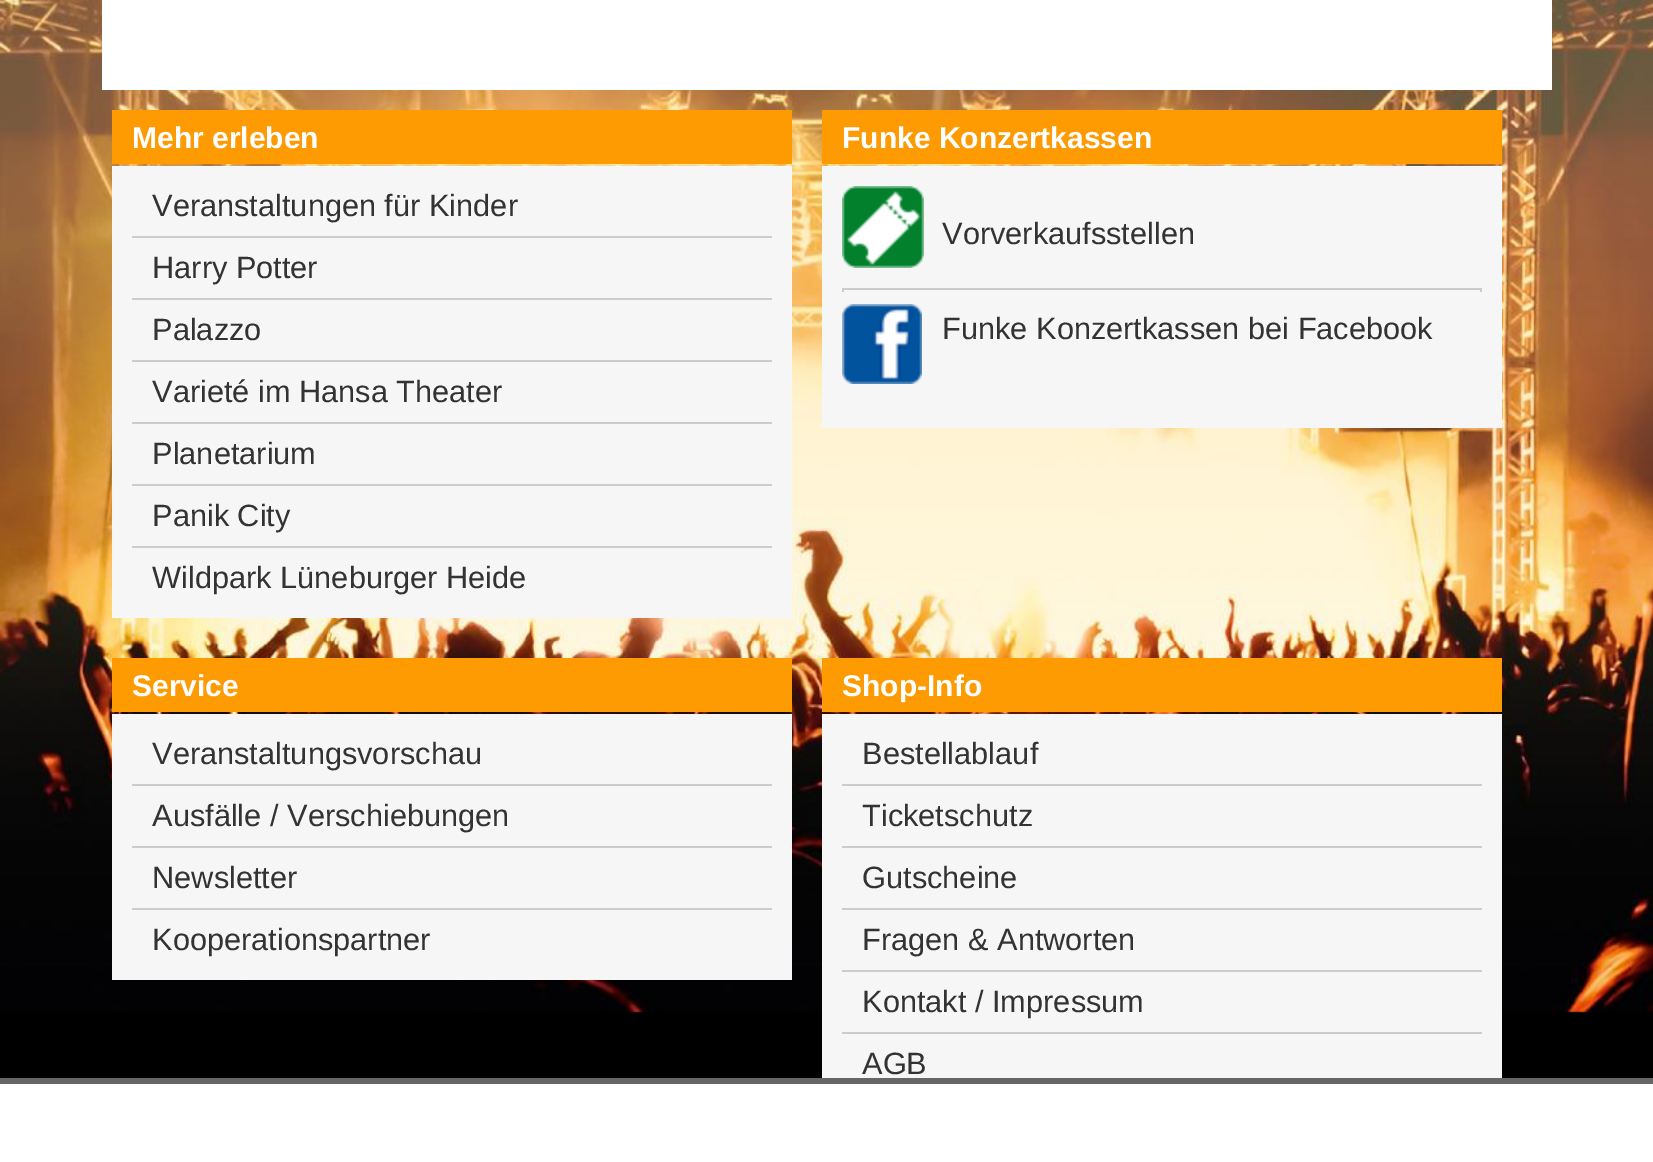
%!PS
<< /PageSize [1653 1162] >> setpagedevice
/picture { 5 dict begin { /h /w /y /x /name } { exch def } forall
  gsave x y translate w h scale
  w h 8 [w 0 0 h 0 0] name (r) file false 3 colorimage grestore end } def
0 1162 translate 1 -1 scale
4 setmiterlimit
0 setgray
0 0 1653 1162 rectfill
(img1.rgb) 0 0 1653 1014 picture
1 setgray
102 0 1450 90 rectfill
0.996 0.604 0.008 setrgbcolor
112 110 680 54 rectfill
/LiberationSans-Bold [30 0 0 -30 0 0] selectfont
1 setgray
132 148 moveto (Mehr erleben) show
0.965 setgray
112 166 680 452 rectfill
/LiberationSans-Regular [30.75 0 0 -30.75 0 0] selectfont
0.2 setgray
152 216 moveto (Veranstaltungen für Kinder) show
0.8 setgray
132 236 640 2 rectfill
0.2 setgray
152 278 moveto (Harry Potter) show
0.8 setgray
132 298 640 2 rectfill
0.2 setgray
152 340 moveto (Palazzo) show
0.8 setgray
132 360 640 2 rectfill
0.2 setgray
152 402 moveto (Varieté im Hansa Theater) show
0.8 setgray
132 422 640 2 rectfill
0.2 setgray
152 464 moveto (Planetarium) show
0.8 setgray
132 484 640 2 rectfill
0.2 setgray
152 526 moveto (Panik City) show
0.8 setgray
132 546 640 2 rectfill
0.2 setgray
152 588 moveto (Wildpark Lüneburger Heide) show
0.996 0.604 0.008 setrgbcolor
822 110 680 54 rectfill
/LiberationSans-Bold [30 0 0 -30 0 0] selectfont
1 setgray
842 148 moveto (Funke Konzertkassen) show
0.965 setgray
822 166 680 262 rectfill
(img2.rgb) 842 186 82 82 picture
/LiberationSans-Regular [30.75 0 0 -30.75 0 0] selectfont
0.2 setgray
942 244 moveto (Vorverkaufsstellen) show
0.8 setgray
842 288 640 2 rectfill
1480 288 2 4 rectfill
842 288 2 4 rectfill
(img3.rgb) 842 304 80 80 picture
0.2 setgray
942 339 moveto (Funke Konzertkassen bei Facebook) show
0.996 0.604 0.008 setrgbcolor
112 658 680 54 rectfill
/LiberationSans-Bold [30 0 0 -30 0 0] selectfont
1 setgray
132 696 moveto (Service) show
0.965 setgray
112 714 680 266 rectfill
/LiberationSans-Regular [30.75 0 0 -30.75 0 0] selectfont
0.2 setgray
152 764 moveto (Veranstaltungsvorschau) show
0.8 setgray
132 784 640 2 rectfill
0.2 setgray
152 826 moveto (Ausfälle / Verschiebungen) show
0.8 setgray
132 846 640 2 rectfill
0.2 setgray
152 888 moveto (Newsletter) show
0.8 setgray
132 908 640 2 rectfill
0.2 setgray
152 950 moveto (Kooperationspartner) show
0.996 0.604 0.008 setrgbcolor
822 658 680 54 rectfill
/LiberationSans-Bold [30 0 0 -30 0 0] selectfont
1 setgray
842 696 moveto (Shop-Info) show
0.965 setgray
822 714 680 364 rectfill
/LiberationSans-Regular [30.75 0 0 -30.75 0 0] selectfont
0.2 setgray
862 764 moveto (Bestellablauf) show
0.8 setgray
842 784 640 2 rectfill
0.2 setgray
862 826 moveto (Ticketschutz) show
0.8 setgray
842 846 640 2 rectfill
0.2 setgray
862 888 moveto (Gutscheine) show
0.8 setgray
842 908 640 2 rectfill
0.2 setgray
862 950 moveto (Fragen & Antworten) show
0.8 setgray
842 970 640 2 rectfill
0.2 setgray
862 1012 moveto (Kontakt / Impressum) show
0.8 setgray
842 1032 640 2 rectfill
0.2 setgray
862 1074 moveto (AGB) show
1 setgray
0 1084 1653 78 rectfill
0.4 setgray
0 1078 1653 6 rectfill
showpage
